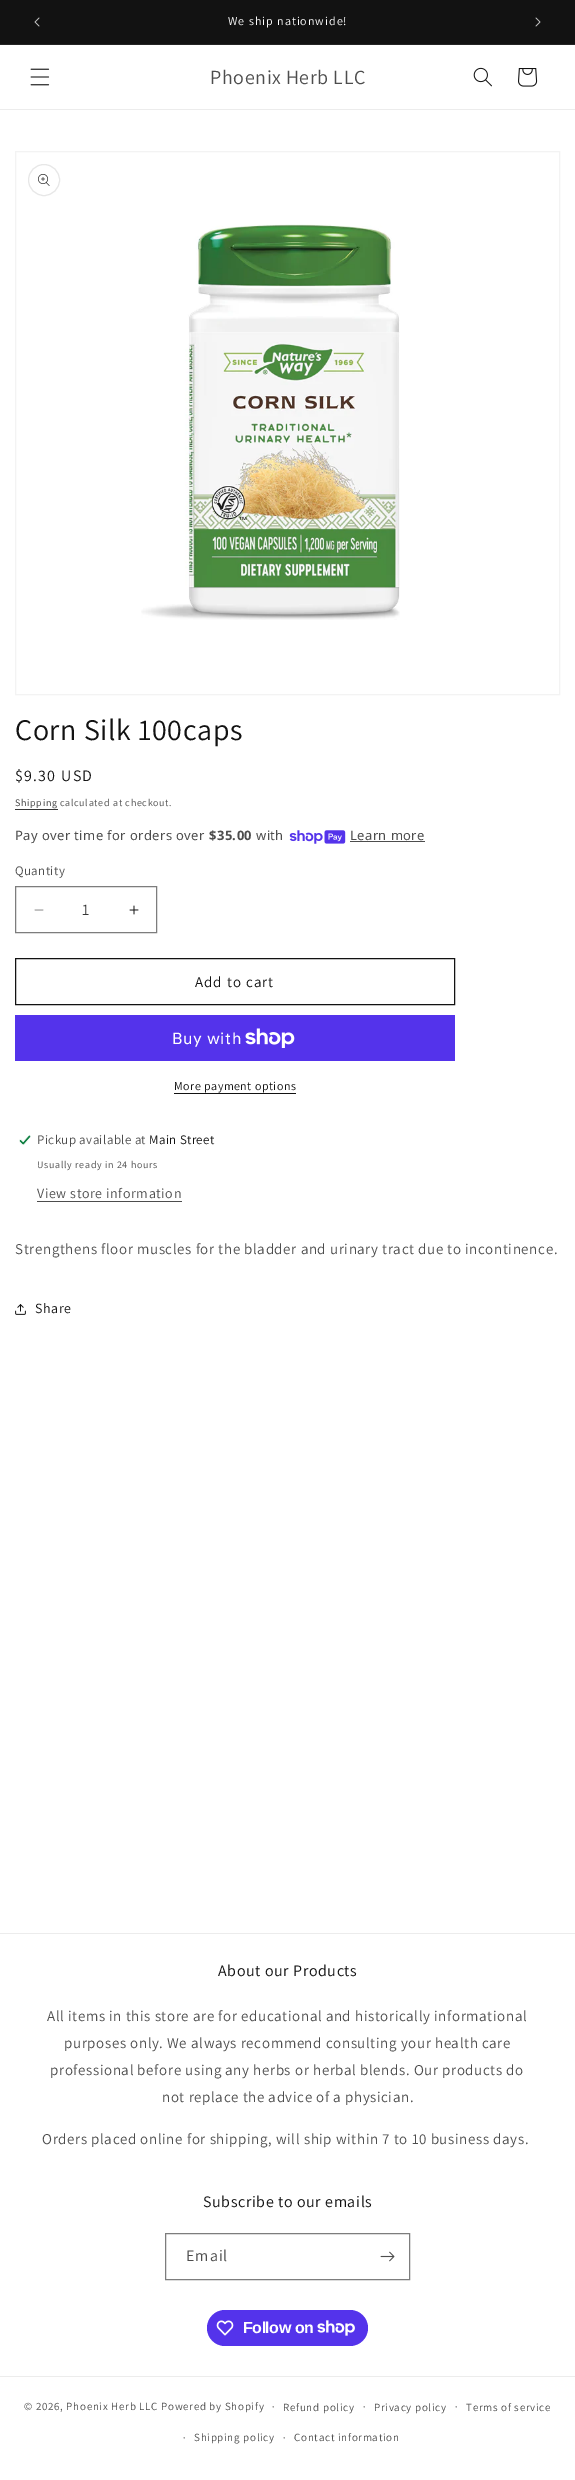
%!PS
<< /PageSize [575 2480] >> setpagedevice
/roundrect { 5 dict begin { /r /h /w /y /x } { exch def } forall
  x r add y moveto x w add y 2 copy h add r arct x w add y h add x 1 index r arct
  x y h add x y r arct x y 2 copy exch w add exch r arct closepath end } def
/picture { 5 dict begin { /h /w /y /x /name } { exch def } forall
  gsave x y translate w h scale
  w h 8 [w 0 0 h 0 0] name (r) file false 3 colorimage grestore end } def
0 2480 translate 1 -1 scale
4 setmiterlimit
1 setgray
0 0 575 2480 rectfill
0.071 setgray
0 0 575 44 rectfill
0.145 setgray
0 44 575 1 rectfill
(img1.rgb) 34 17 6 10 picture
/Assistant-Regular [12 0 0 -12 0 0] selectfont
1 setgray
228 25 moveto 1 0 (We ship nationwide!) ashow
(img2.rgb) 535 17 6 10 picture
0.925 setgray
0 109 575 1 rectfill
(img3.rgb) 30 68 20 18 picture
/Assistant-Regular [20 0 0 -20 0 0] selectfont
0.302 setgray
210 84 moveto 0.6 0 (Phoenix Herb LLC) ashow
(img4.rgb) 473 67 19 20 picture
(img5.rgb) 518 68 20 19 picture
0.953 setgray
15.5 151.5 544 543 rectstroke
0.906 setgray
newpath 44 180 15.5 0 360 arc closepath stroke
(img6.rgb) 38 174 12 12 picture
(img7.rgb) 141 224 259 396 picture
/Assistant-Regular [30 0 0 -30 0 0] selectfont
0.071 setgray
15 740 moveto 0.6 0 (Corn Silk 100caps) ashow
/Assistant-Regular [16 0 0 -16 0 0] selectfont
15 781 moveto 1.25 0 ($9.30 USD) ashow
/Assistant-Regular [10 0 0 -10 0 0] selectfont
0.212 setgray
15 806 moveto 0.7 0 (Shipping) ashow
15 809 43 1 rectfill
0.302 setgray
60 806 moveto 0.7 0 (calculated at checkout.) ashow
/NotoSans-Regular [13 0 0 -13 0 0] selectfont
15 840 moveto 0.4 0 (Pay over time for orders over) ashow
/NotoSans-Bold [13 0 0 -13 0 0] selectfont
209 840 moveto 0.4 0 ($35.00) ashow
/NotoSans-Regular [13 0 0 -13 0 0] selectfont
256 840 moveto 0.4 0 (with) ashow
(img8.rgb) 289 830 57 14 picture
350 840 moveto 0.4 0 (Learn more) ashow
350 841 75 1 rectfill
/Assistant-Regular [13 0 0 -13 0 0] selectfont
15 875 moveto 0.4 0 (Quantity) ashow
(img9.rgb) 34 909 10 2 picture
(img10.rgb) 129 905 10 10 picture
0.49 setgray
15.5 886.5 141 46 rectstroke
/Assistant-Regular [16 0 0 -16 0 0] selectfont
0.212 setgray
82 915 moveto (1) show
0.071 setgray
15.5 958.5 439 46 rectstroke
/Assistant-Regular [15 0 0 -15 0 0] selectfont
195 987 moveto 1 0 (Add to cart) ashow
0.329 0.2 0.922 setrgbcolor
15 1015 440 46 rectfill
/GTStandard-Regular [16 0 0 -16 0 0] selectfont
1 setgray
172 1044 moveto 0.6 0 (Buy with) ashow
(img11.rgb) 245 1028 50 20 picture
/Assistant-Regular [12 0 0 -12 0 0] selectfont
0.071 setgray
174 1090 moveto 0.5 0 (More payment options) ashow
174 1093 122 1 rectfill
(img12.rgb) 19 1135 12 10 picture
/Assistant-Regular [13 0 0 -13 0 0] selectfont
0.302 setgray
37 1144 moveto 0.4 0 (Pickup available at) ashow
0.071 setgray
149 1144 moveto 0.4 0 (Main Street) ashow
/Assistant-Regular [10 0 0 -10 0 0] selectfont
0.302 setgray
37 1168 moveto 0.7 0 (Usually ready in 24 hours) ashow
/Assistant-Regular [14 0 0 -14 0 0] selectfont
37 1198 moveto 0.6 0 (View store information) ashow
37 1201 145 1 rectfill
/Assistant-Regular [15 0 0 -15 0 0] selectfont
15 1254 moveto 0.6 0 (Strengthens floor muscles for the bladder and urinary tract due to incontinence.) ashow
(img13.rgb) 15 1304 11 11 picture
/Assistant-Regular [14 0 0 -14 0 0] selectfont
0.071 setgray
35 1313 moveto 0.6 0 (Share) ashow
0.925 setgray
0 1933 575 1 rectfill
/Assistant-Regular [16 0 0 -16 0 0] selectfont
0.071 setgray
218 1976 moveto 0.6 0 (About our Products) ashow
/Assistant-Regular [15 0 0 -15 0 0] selectfont
0.302 setgray
47 2021 moveto 0.6 0 (All items in this store are for educational and historically informational) ashow
64 2048 moveto 0.6 0 (purposes only. We always recommend consulting your health care) ashow
50 2075 moveto 0.6 0 (professional before using any herbs or herbal blends. Our products do) ashow
162 2102 moveto 0.6 0 (not replace the advice of a physician.) ashow
42 2144 moveto 0.6 0 (Orders placed online for shipping, will ship within 7 to 10 business days.) ashow
/Assistant-Regular [16 0 0 -16 0 0] selectfont
0.071 setgray
203 2207 moveto 0.6 0 (Subscribe to our emails) ashow
0.49 setgray
165.5 2233.5 244 46 rectstroke
0.302 setgray
186 2261 moveto 1 0 (Email) ashow
(img14.rgb) 380 2251 15 11 picture
0.329 0.2 0.922 setrgbcolor
207 2310 161 36 18 roundrect fill
(img15.rgb) 216 2320 18 16 picture
/LiberationSans-Bold [16 0 0 -16 0 0] selectfont
1 setgray
243 2333 moveto -0.5 0 (Follow on) ashow
(img16.rgb) 317 2320 38 16 picture
0.925 setgray
0 2376 575 1 rectfill
/Assistant-Regular [11 0 0 -11 0 0] selectfont
0.302 setgray
24 2410 moveto 0.7 0 (© 2026, Phoenix Herb LLC Powered by Shopify) ashow
/Assistant-Regular [10 0 0 -10 0 0] selectfont
272 2410 moveto 0.7 0 (·) ashow
/Assistant-Regular [11 0 0 -11 0 0] selectfont
283 2411 moveto 0.7 0 (Refund policy) ashow
/Assistant-Regular [10 0 0 -10 0 0] selectfont
363 2410 moveto 0.7 0 (·) ashow
/Assistant-Regular [11 0 0 -11 0 0] selectfont
374 2411 moveto 0.7 0 (Privacy policy) ashow
/Assistant-Regular [10 0 0 -10 0 0] selectfont
455 2410 moveto 0.7 0 (·) ashow
/Assistant-Regular [11 0 0 -11 0 0] selectfont
466 2411 moveto 0.7 0 (Terms of service) ashow
/Assistant-Regular [10 0 0 -10 0 0] selectfont
183 2441 moveto 0.7 0 (·) ashow
/Assistant-Regular [11 0 0 -11 0 0] selectfont
194 2441 moveto 0.7 0 (Shipping policy) ashow
/Assistant-Regular [10 0 0 -10 0 0] selectfont
283 2441 moveto 0.7 0 (·) ashow
/Assistant-Regular [11 0 0 -11 0 0] selectfont
294 2441 moveto 0.7 0 (Contact information) ashow
showpage
